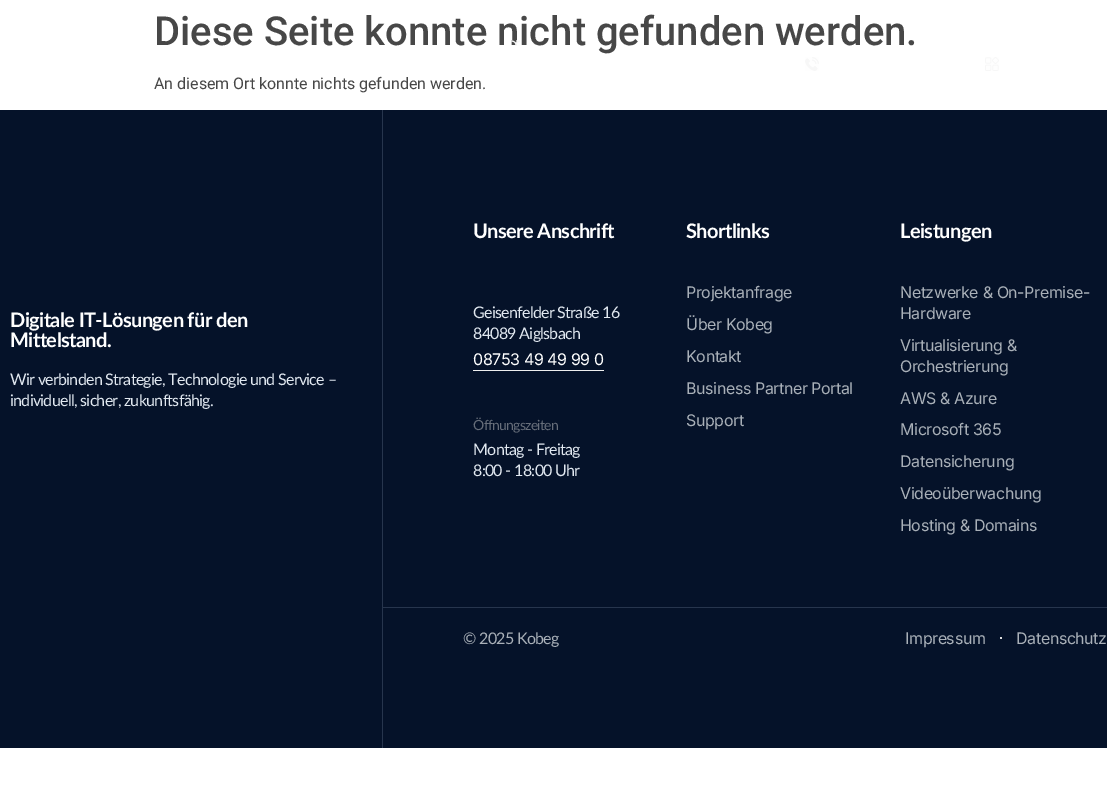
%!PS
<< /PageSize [1107 793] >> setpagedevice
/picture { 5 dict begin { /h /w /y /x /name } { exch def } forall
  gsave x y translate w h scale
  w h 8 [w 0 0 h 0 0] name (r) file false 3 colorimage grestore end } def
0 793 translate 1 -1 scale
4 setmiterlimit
1 setgray
0 0 1107 793 rectfill
/Roboto-Medium [40 0 0 -40 0 0] selectfont
0.278 setgray
154 45 moveto (Diese Seite konnte nicht gefunden werden.) show
/Roboto-Regular [16 0 0 -16 0 0] selectfont
154 89 moveto (An diesem Ort konnte nichts gefunden werden.) show
(img1.rgb) 511 40 9 6 picture
(img2.rgb) 805 57 14 14 picture
(img3.rgb) 985 57 14 14 picture
0.02 0.071 0.161 setrgbcolor
0 110 1107 638 rectfill
/Lato-Bold [20 0 0 -20 0 0] selectfont
1 setgray
10 327 moveto -0.6 0 (Digitale IT-Lösungen für den) ashow
10 347 moveto -0.6 0 (Mittelstand.) ashow
/Lato-Regular [16 0 0 -16 0 0] selectfont
0.882 0.91 0.941 setrgbcolor
10 385 moveto -0.7 0 (Wir verbinden Strategie, Technologie und Service –) ashow
10 406 moveto -0.7 0 (individuell, sicher, zukunftsfähig.) ashow
0.153 0.208 0.302 setrgbcolor
382 110 1 638 rectfill
383 607 724 1 rectfill
/Lato-Bold [20 0 0 -20 0 0] selectfont
1 setgray
473 238 moveto -0.6 0 (Unsere Anschrift) ashow
/Lato-Regular [16 0 0 -16 0 0] selectfont
0.882 0.91 0.941 setrgbcolor
473 318 moveto -0.7 0 (Geisenfelder Straße 16) ashow
473 339 moveto -0.7 0 (84089 Aiglsbach) ashow
0.937 setgray
473 370 131 1 rectfill
/Inter-Regular [16 0 0 -16 0 0] selectfont
1 setgray
473 365 moveto -0.4 0 (08753 49 49 99 0) ashow
/Lato-Regular [14 0 0 -14 0 0] selectfont
0.404 0.431 0.478 setrgbcolor
473 430 moveto -0.7 0 (Öffnungszeiten) ashow
/Lato-Regular [16 0 0 -16 0 0] selectfont
0.882 0.91 0.941 setrgbcolor
473 455 moveto -0.7 0 (Montag - Freitag) ashow
473 476 moveto -0.7 0 (8:00 - 18:00 Uhr) ashow
/Lato-Bold [20 0 0 -20 0 0] selectfont
1 setgray
686 238 moveto -0.6 0 (Shortlinks) ashow
/Inter-Regular [16 0 0 -16 0 0] selectfont
0.663 0.69 0.722 setrgbcolor
686 298 moveto -0.4 0 (Projektanfrage) ashow
686 330 moveto -0.4 0 (Über Kobeg) ashow
686 362 moveto -0.4 0 (Kontakt) ashow
686 394 moveto -0.4 0 (Business Partner Portal) ashow
686 426 moveto -0.4 0 (Support) ashow
/Lato-Bold [20 0 0 -20 0 0] selectfont
1 setgray
900 238 moveto -0.6 0 (Leistungen) ashow
/Inter-Regular [16 0 0 -16 0 0] selectfont
0.663 0.69 0.722 setrgbcolor
900 298 moveto -0.4 0 (Netzwerke & On-Premise-) ashow
900 319 moveto -0.4 0 (Hardware) ashow
900 351 moveto -0.4 0 (Virtualisierung &) ashow
900 372 moveto -0.4 0 (Orchestrierung) ashow
900 404 moveto -0.4 0 (AWS & Azure) ashow
900 435 moveto -0.4 0 (Microsoft 365) ashow
900 467 moveto -0.4 0 (Datensicherung) ashow
900 499 moveto -0.4 0 (Videoüberwachung) ashow
900 531 moveto -0.4 0 (Hosting & Domains) ashow
/Lato-Regular [16 0 0 -16 0 0] selectfont
463 644 moveto -0.7 0 (© 2025 Kobeg) ashow
/Inter-Regular [16 0 0 -16 0 0] selectfont
905 644 moveto -0.4 0 (Impressum) ashow
0.867 setgray
1000 637 2 2 rectfill
0.663 0.69 0.722 setrgbcolor
1016 644 moveto -0.4 0 (Datenschutz) ashow
showpage
